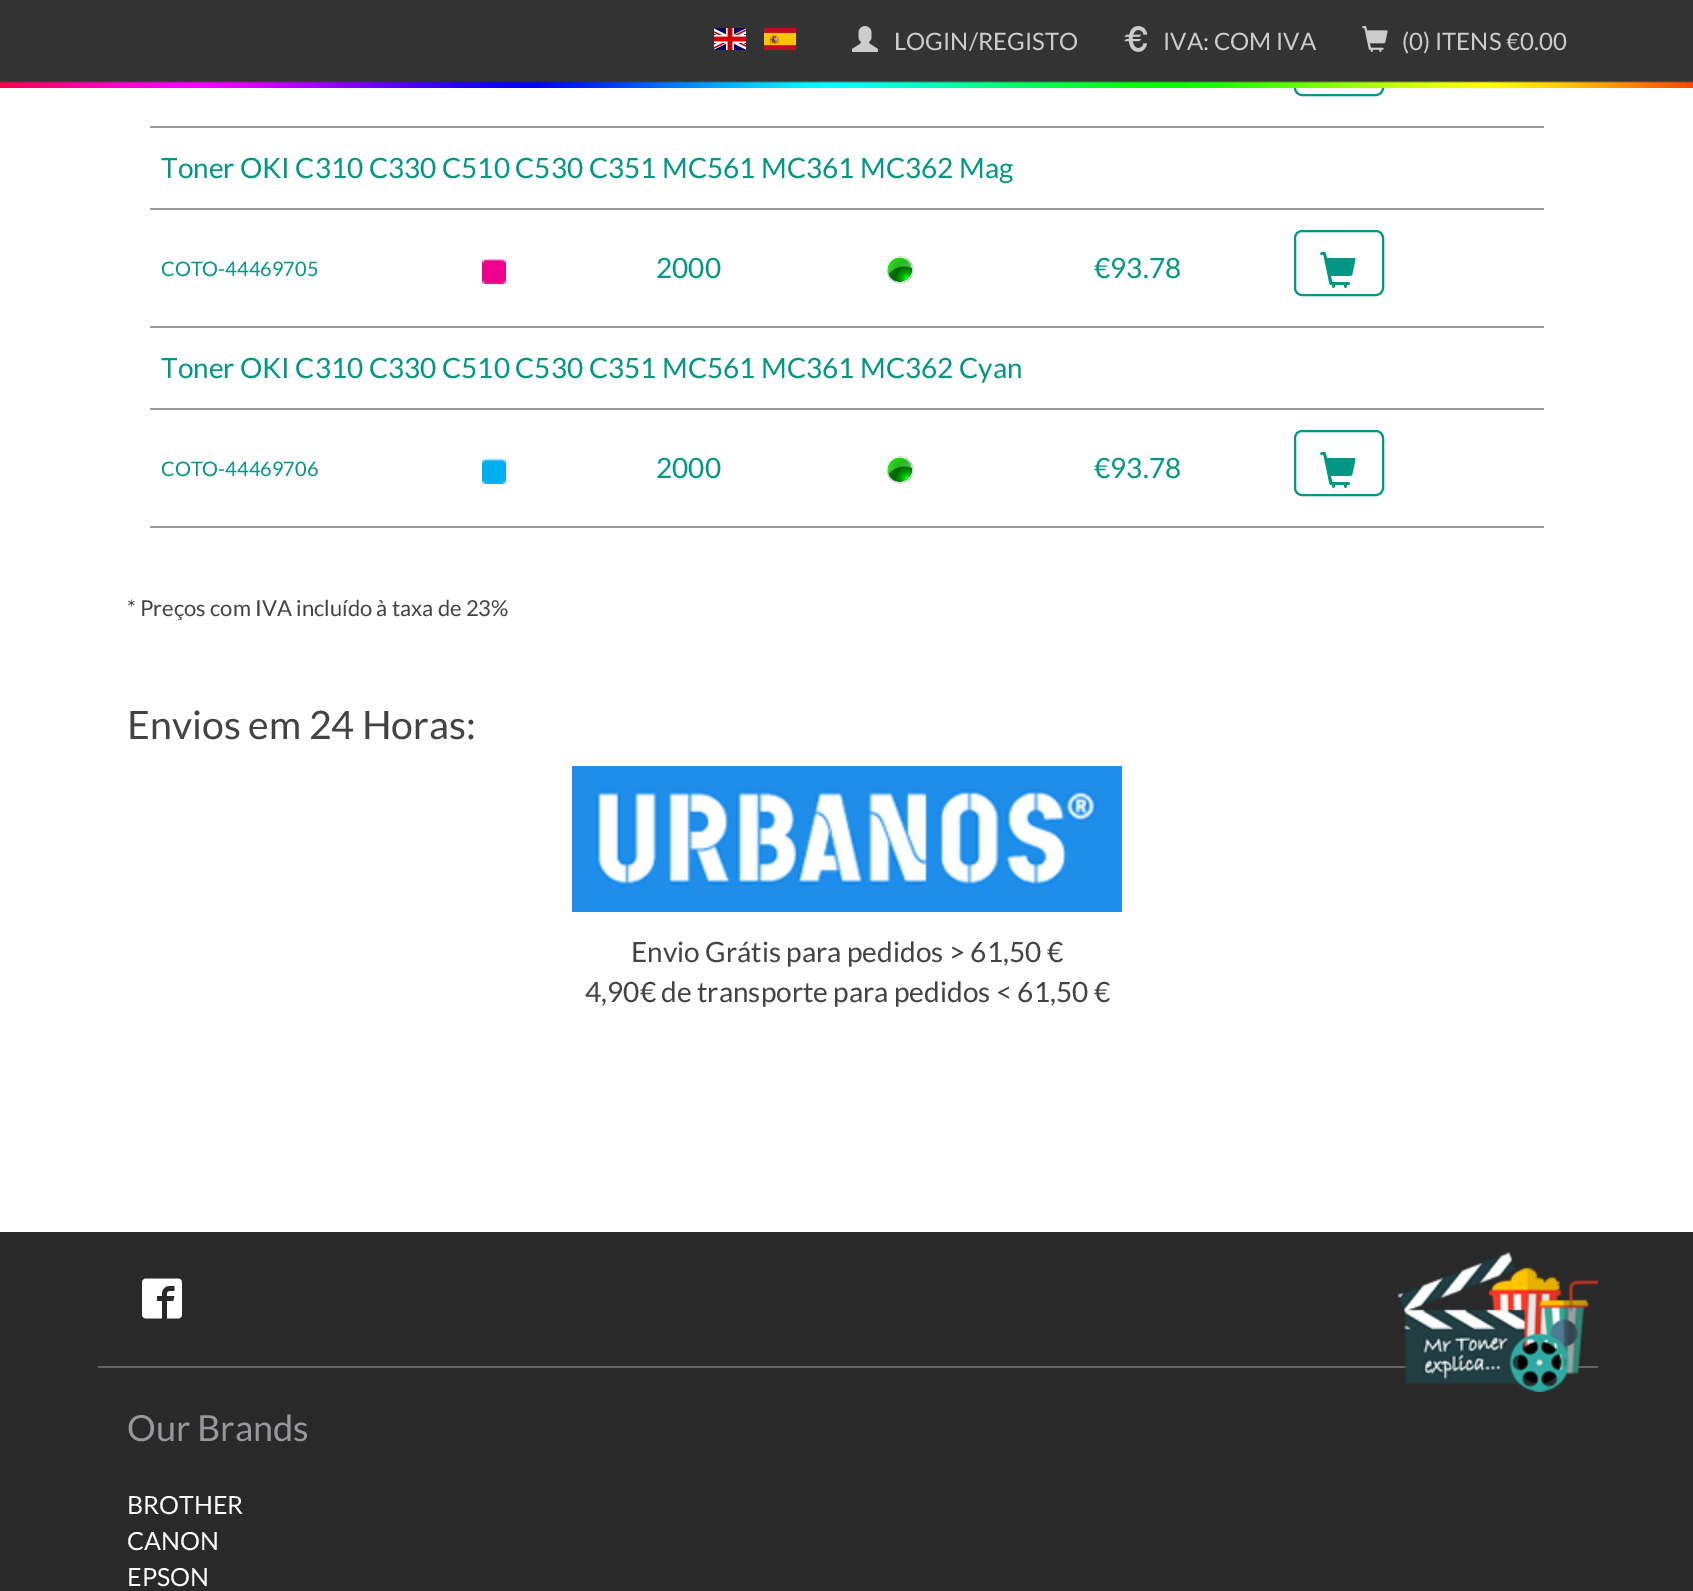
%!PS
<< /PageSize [1693 1591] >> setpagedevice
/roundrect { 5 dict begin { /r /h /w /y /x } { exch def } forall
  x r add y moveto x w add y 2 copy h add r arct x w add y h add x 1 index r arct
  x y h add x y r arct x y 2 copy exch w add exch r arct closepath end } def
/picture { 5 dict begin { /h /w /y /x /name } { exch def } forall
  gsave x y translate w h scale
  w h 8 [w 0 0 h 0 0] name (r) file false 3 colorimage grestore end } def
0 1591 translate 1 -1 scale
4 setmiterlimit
1 setgray
0 0 1693 1591 rectfill
0 0.596 0.518 setrgbcolor
2 setlinewidth
1295 31 88 64 7 roundrect stroke
0.2 setgray
0 0 1693 83 rectfill
(img1.rgb) 0 81 1693 7 picture
(img2.rgb) 714 28 32 22 picture
(img3.rgb) 764 28 32 22 picture
(img4.rgb) 852 26 26 26 picture
/Lato-Regular [24 0 0 -24 0 0] selectfont
0.8 setgray
894 50 moveto (LOGIN/REGISTO) show
(img5.rgb) 1124 26 24 26 picture
1163 50 moveto (IVA: COM IVA) show
(img6.rgb) 1362 26 26 26 picture
1402 50 moveto (\(0\) ITENS €0.00) show
0.6 setgray
150 126 1394 2 rectfill
150 208 1394 2 rectfill
/Lato-Regular [28 0 0 -28 0 0] selectfont
0 0.592 0.514 setrgbcolor
161 178 moveto (Toner OKI C310 C330 C510 C530 C351 MC561 MC361 MC362 Mag) show
0.6 setgray
150 326 1394 2 rectfill
/Lato-Regular [20 0 0 -20 0 0] selectfont
0 0.592 0.514 setrgbcolor
161 276 moveto (COTO-44469705) show
(img7.rgb) 482 258 24 26 picture
/Lato-Regular [28 0 0 -28 0 0] selectfont
656 278 moveto (2000) show
(img8.rgb) 886 256 28 28 picture
1094 278 moveto (€93.78) show
0 0.596 0.518 setrgbcolor
1295 231 88 64 7 roundrect stroke
(img9.rgb) 1320 252 36 36 picture
0.6 setgray
150 408 1394 2 rectfill
0 0.592 0.514 setrgbcolor
161 378 moveto (Toner OKI C310 C330 C510 C530 C351 MC561 MC361 MC362 Cyan) show
0.6 setgray
150 526 1394 2 rectfill
/Lato-Regular [20 0 0 -20 0 0] selectfont
0 0.592 0.514 setrgbcolor
161 476 moveto (COTO-44469706) show
(img10.rgb) 482 458 24 26 picture
/Lato-Regular [28 0 0 -28 0 0] selectfont
656 478 moveto (2000) show
(img11.rgb) 886 456 28 28 picture
1094 478 moveto (€93.78) show
0 0.596 0.518 setrgbcolor
1295 431 88 64 7 roundrect stroke
(img9.rgb) 1320 452 36 36 picture
/Lato-Regular [22 0 0 -22 0 0] selectfont
0.263 setgray
127 616 moveto (* Preços com IVA incluído à taxa de 23%) show
/Lato-Regular [39.25 0 0 -39.25 0 0] selectfont
127 739 moveto (Envios em 24 Horas:) show
(img12.rgb) 572 766 550 146 picture
/Lato-Regular [28 0 0 -28 0 0] selectfont
631 962 moveto (Envio Grátis para pedidos > 61,50 €) show
585 1002 moveto (4,90€ de transporte para pedidos < 61,50 €) show
0.161 setgray
0 1232 1693 359 rectfill
(img13.rgb) 142 1278 40 41 picture
0.392 setgray
98 1366 1500 2 rectfill
(img14.rgb) 1398 1252 200 140 picture
/Lato-Regular [36 0 0 -36 0 0] selectfont
0.6 0.592 0.612 setrgbcolor
127 1441 moveto (Our Brands) show
/Lato-Regular [25 0 0 -25 0 0] selectfont
1 setgray
127 1514 moveto (BROTHER) show
127 1550 moveto (CANON) show
127 1586 moveto (EPSON) show
showpage
